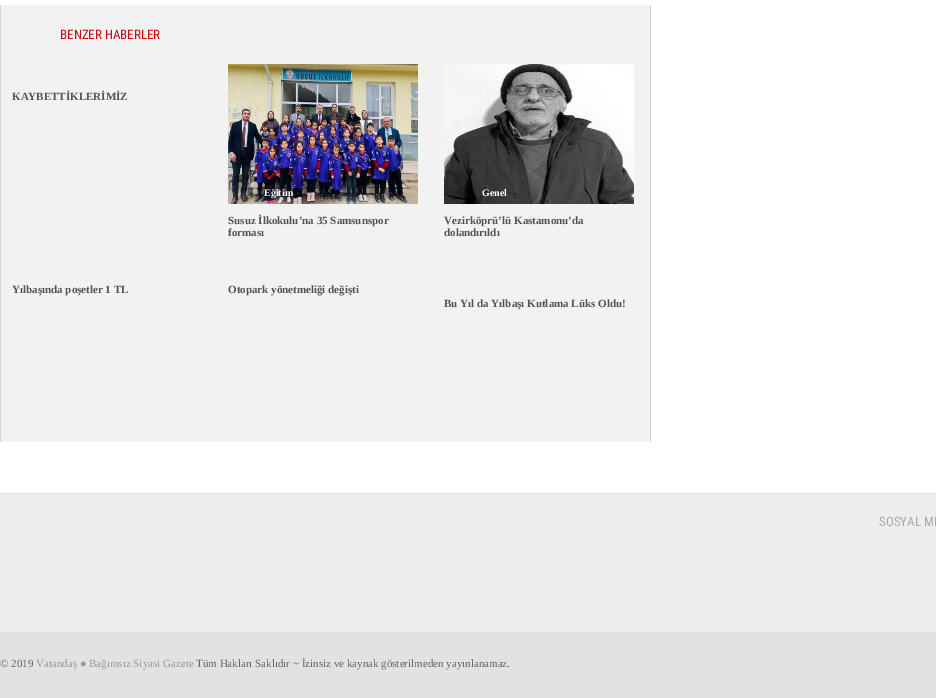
%!PS
<< /PageSize [936 698] >> setpagedevice
/picture { 5 dict begin { /h /w /y /x /name } { exch def } forall
  gsave x y translate w h scale
  w h 8 [w 0 0 h 0 0] name (r) file false 3 colorimage grestore end } def
0 698 translate 1 -1 scale
4 setmiterlimit
1 setgray
0 0 936 698 rectfill
0.949 setgray
1 5 649 437 rectfill
0.831 setgray
650 5 1 437 rectfill
0 5 1 437 rectfill
/RobotoCondensed-Regular [13 0 0 -13 0 0] selectfont
0.796 0.027 0.027 setrgbcolor
60 39 moveto (BENZER HABERLER) show
/LiberationSerif-Bold [11 0 0 -11 0 0] selectfont
0.325 setgray
12 100 moveto (KAYBETTİKLERİMİZ) show
(img1.rgb) 228 64 190 140 picture
/LiberationSerif-Bold [10 0 0 -10 0 0] selectfont
1 setgray
264 196 moveto (Eğitim) show
/LiberationSerif-Bold [11 0 0 -11 0 0] selectfont
0.325 setgray
228 224 moveto (Susuz İlkokulu’na 35 Samsunspor) show
228 236 moveto (forması) show
(img2.rgb) 444 64 190 140 picture
/LiberationSerif-Bold [10 0 0 -10 0 0] selectfont
1 setgray
482 196 moveto (Genel) show
/LiberationSerif-Bold [11 0 0 -11 0 0] selectfont
0.325 setgray
444 224 moveto (Vezirköprü’lü Kastamonu’da) show
444 236 moveto (dolandırıldı) show
12 293 moveto (Yılbaşında poşetler 1 TL) show
228 293 moveto (Otopark yönetmeliği değişti) show
444 307 moveto (Bu Yıl da Yılbaşı Kutlama Lüks Oldu!) show
0.933 setgray
0 494 936 138 rectfill
0.886 setgray
0 493 936 1 rectfill
/RobotoCondensed-Regular [13 0 0 -13 0 0] selectfont
0.667 setgray
879 526 moveto (SOSYAL ME) show
0.886 setgray
0 632 936 66 rectfill
/LiberationSerif-Regular [11 0 0 -11 0 0] selectfont
0.4 setgray
0 667 moveto (© 2019) show
0.6 setgray
36 667 moveto (Vatandaş ● Bağımsız Siyasi Gazete) show
0.4 setgray
196 667 moveto (Tüm Hakları Saklıdır ~ İzinsiz ve kaynak gösterilmeden yayınlanamaz.) show
showpage
